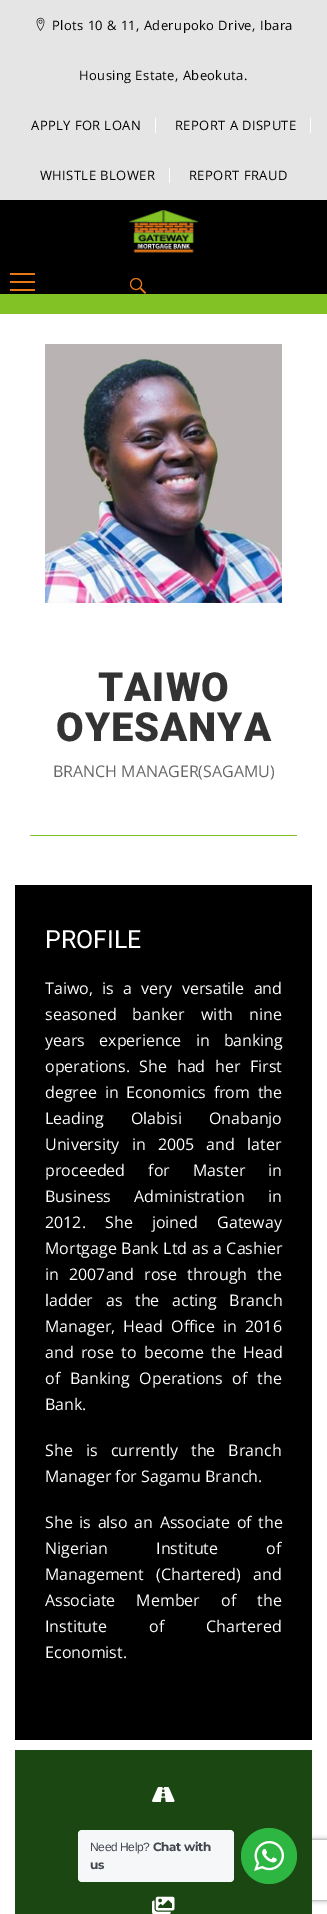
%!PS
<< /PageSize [327 1914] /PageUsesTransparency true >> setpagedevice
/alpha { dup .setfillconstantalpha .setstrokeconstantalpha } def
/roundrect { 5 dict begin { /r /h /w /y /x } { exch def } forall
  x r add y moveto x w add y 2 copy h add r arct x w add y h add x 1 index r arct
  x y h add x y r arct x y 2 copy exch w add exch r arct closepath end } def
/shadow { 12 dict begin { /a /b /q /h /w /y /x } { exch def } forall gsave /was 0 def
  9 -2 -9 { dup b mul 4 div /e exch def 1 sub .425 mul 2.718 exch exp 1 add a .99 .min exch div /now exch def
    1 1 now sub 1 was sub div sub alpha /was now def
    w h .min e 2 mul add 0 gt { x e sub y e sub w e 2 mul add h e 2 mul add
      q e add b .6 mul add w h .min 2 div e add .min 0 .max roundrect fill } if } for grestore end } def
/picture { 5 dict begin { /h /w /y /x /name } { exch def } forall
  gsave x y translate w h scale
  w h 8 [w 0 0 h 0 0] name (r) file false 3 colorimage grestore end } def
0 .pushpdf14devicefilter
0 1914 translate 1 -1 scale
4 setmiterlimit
1 setgray
0 0 327 1914 rectfill
0 setgray
0 200 327 94 rectfill
0.898 setgray
0 0 327 200 rectfill
(img1.rgb) 36 17 9 14 picture
/OpenSans-Regular [13 0 0 -13 0 0] selectfont
0 setgray
52 30 moveto 0.4 0 (Plots 10 & 11, Aderupoko Drive, Ibara) ashow
79 80 moveto 0.4 0 (Housing Estate, Abeokuta.) ashow
31 130 moveto 0.4 0 (APPLY FOR LOAN) ashow
1 setgray
155 118 1 15 rectfill
0 setgray
175 130 moveto 0.4 0 (REPORT A DISPUTE) ashow
1 setgray
310 118 1 15 rectfill
0 setgray
40 180 moveto 0.4 0 (WHISTLE BLOWER) ashow
1 setgray
169 168 1 15 rectfill
0 setgray
189 180 moveto 0.4 0 (REPORT FRAUD) ashow
(img2.rgb) 129 210 70 43 picture
0.906 0.471 0.09 setrgbcolor
10 273 25 2 rectfill
10 281 25 2 rectfill
10 289 25 2 rectfill
newpath 140 289 moveto 141 287.5 lineto 146 292.5 lineto 145 294 lineto closepath fill
newpath 136 284 5.5 0 360 arc closepath stroke
0.51 0.761 0.141 setrgbcolor
0 294 327 20 rectfill
(img3.rgb) 45 344 237 259 picture
/Roboto-Black [40 0 0 -40 0 0] selectfont
0.2 setgray
98 701 moveto 1 0 (TAIWO) ashow
56 741 moveto 1 0 (OYESANYA) ashow
/OpenSans-Regular [16 0 0 -16 0 0] selectfont
0.408 setgray
53 777 moveto (BRANCH MANAGER\(SAGAMU\)) show
0.51 0.761 0.141 setrgbcolor
30 835 267 1 rectfill
0 setgray
15 885 297 855 rectfill
/Roboto-Regular [25 0 0 -25 0 0] selectfont
1 setgray
45 948 moveto (PROFILE) show
/OpenSans-Regular [16 0 0 -16 0 0] selectfont
45 994 moveto 5 0 32 (Taiwo, is a very versatile and) widthshow
45 1020 moveto 12 0 32 (seasoned banker with nine) widthshow
45 1046 moveto 10 0 32 (years experience in banking) widthshow
45 1072 moveto 5.5 0 32 (operations. She had her First) widthshow
45 1098 moveto 3.5 0 32 (degree in Economics from the) widthshow
45 1124 moveto 23 0 32 (Leading Olabisi Onabanjo) widthshow
45 1150 moveto 8 0 32 (University in 2005 and later) widthshow
45 1176 moveto 19 0 32 (proceeded for Master in) widthshow
45 1202 moveto 19 0 32 (Business Administration in) widthshow
45 1228 moveto 15 0 32 (2012. She joined Gateway) widthshow
45 1254 moveto 0.5 0 32 (Mortgage Bank Ltd as a Cashier) widthshow
45 1280 moveto 6 0 32 (in 2007and rose through the) widthshow
45 1306 moveto 8.5 0 32 (ladder as the acting Branch) widthshow
45 1332 moveto 4 0 32 (Manager, Head Office in 2016) widthshow
45 1358 moveto 3.25 0 32 (and rose to become the Head) widthshow
45 1384 moveto 5.5 0 32 (of Banking Operations of the) widthshow
45 1410 moveto (Bank.) show
45 1456 moveto 9 0 32 (She is currently the Branch) widthshow
45 1482 moveto (Manager for Sagamu Branch.) show
45 1528 moveto 2.5 0 32 (She is also an Associate of the) widthshow
45 1554 moveto 44 0 32 (Nigerian Institute of) widthshow
45 1580 moveto 8 0 32 (Management \(Chartered\) and) widthshow
45 1606 moveto 17 0 32 (Associate Member of the) widthshow
45 1632 moveto 38 0 32 (Institute of Chartered) widthshow
45 1658 moveto (Economist.) show
gsave
newpath 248 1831 moveto 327 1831 lineto 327 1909 lineto 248 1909 lineto closepath 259 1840 moveto 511 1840 lineto 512 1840 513 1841 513 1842 curveto 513 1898 lineto 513 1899 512 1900 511 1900 curveto 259 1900 lineto 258 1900 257 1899 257 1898 curveto 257 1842 lineto 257 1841 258 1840 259 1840 curveto closepath eoclip newpath
0.502 setgray
257 1840 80 60 2 2.5 1 shadow
grestore
0.106 0.278 0.075 setrgbcolor
15 1750 297 164 rectfill
(img4.rgb) 152 1787 23 15 picture
(img5.rgb) 152 1896 23 18 picture
0.961 0.969 0.976 setrgbcolor
78 1830 156 52 4 roundrect fill
/LiberationSans-Regular [12 0 0 -12 0 0] selectfont
0.263 0.278 0.306 setrgbcolor
90 1851 moveto -0.4 0 (Need Help?) ashow
/Montserrat-Bold [12 0 0 -12 0 0] selectfont
153 1851 moveto -0.4 0 (Chat with) ashow
90 1869 moveto -0.4 0 (us) ashow
0.176 0.718 0.259 setrgbcolor
newpath 269 1856 28 0 360 arc closepath fill
(img6.rgb) 254 1841 30 30 picture
.poppdf14devicefilter showpage
